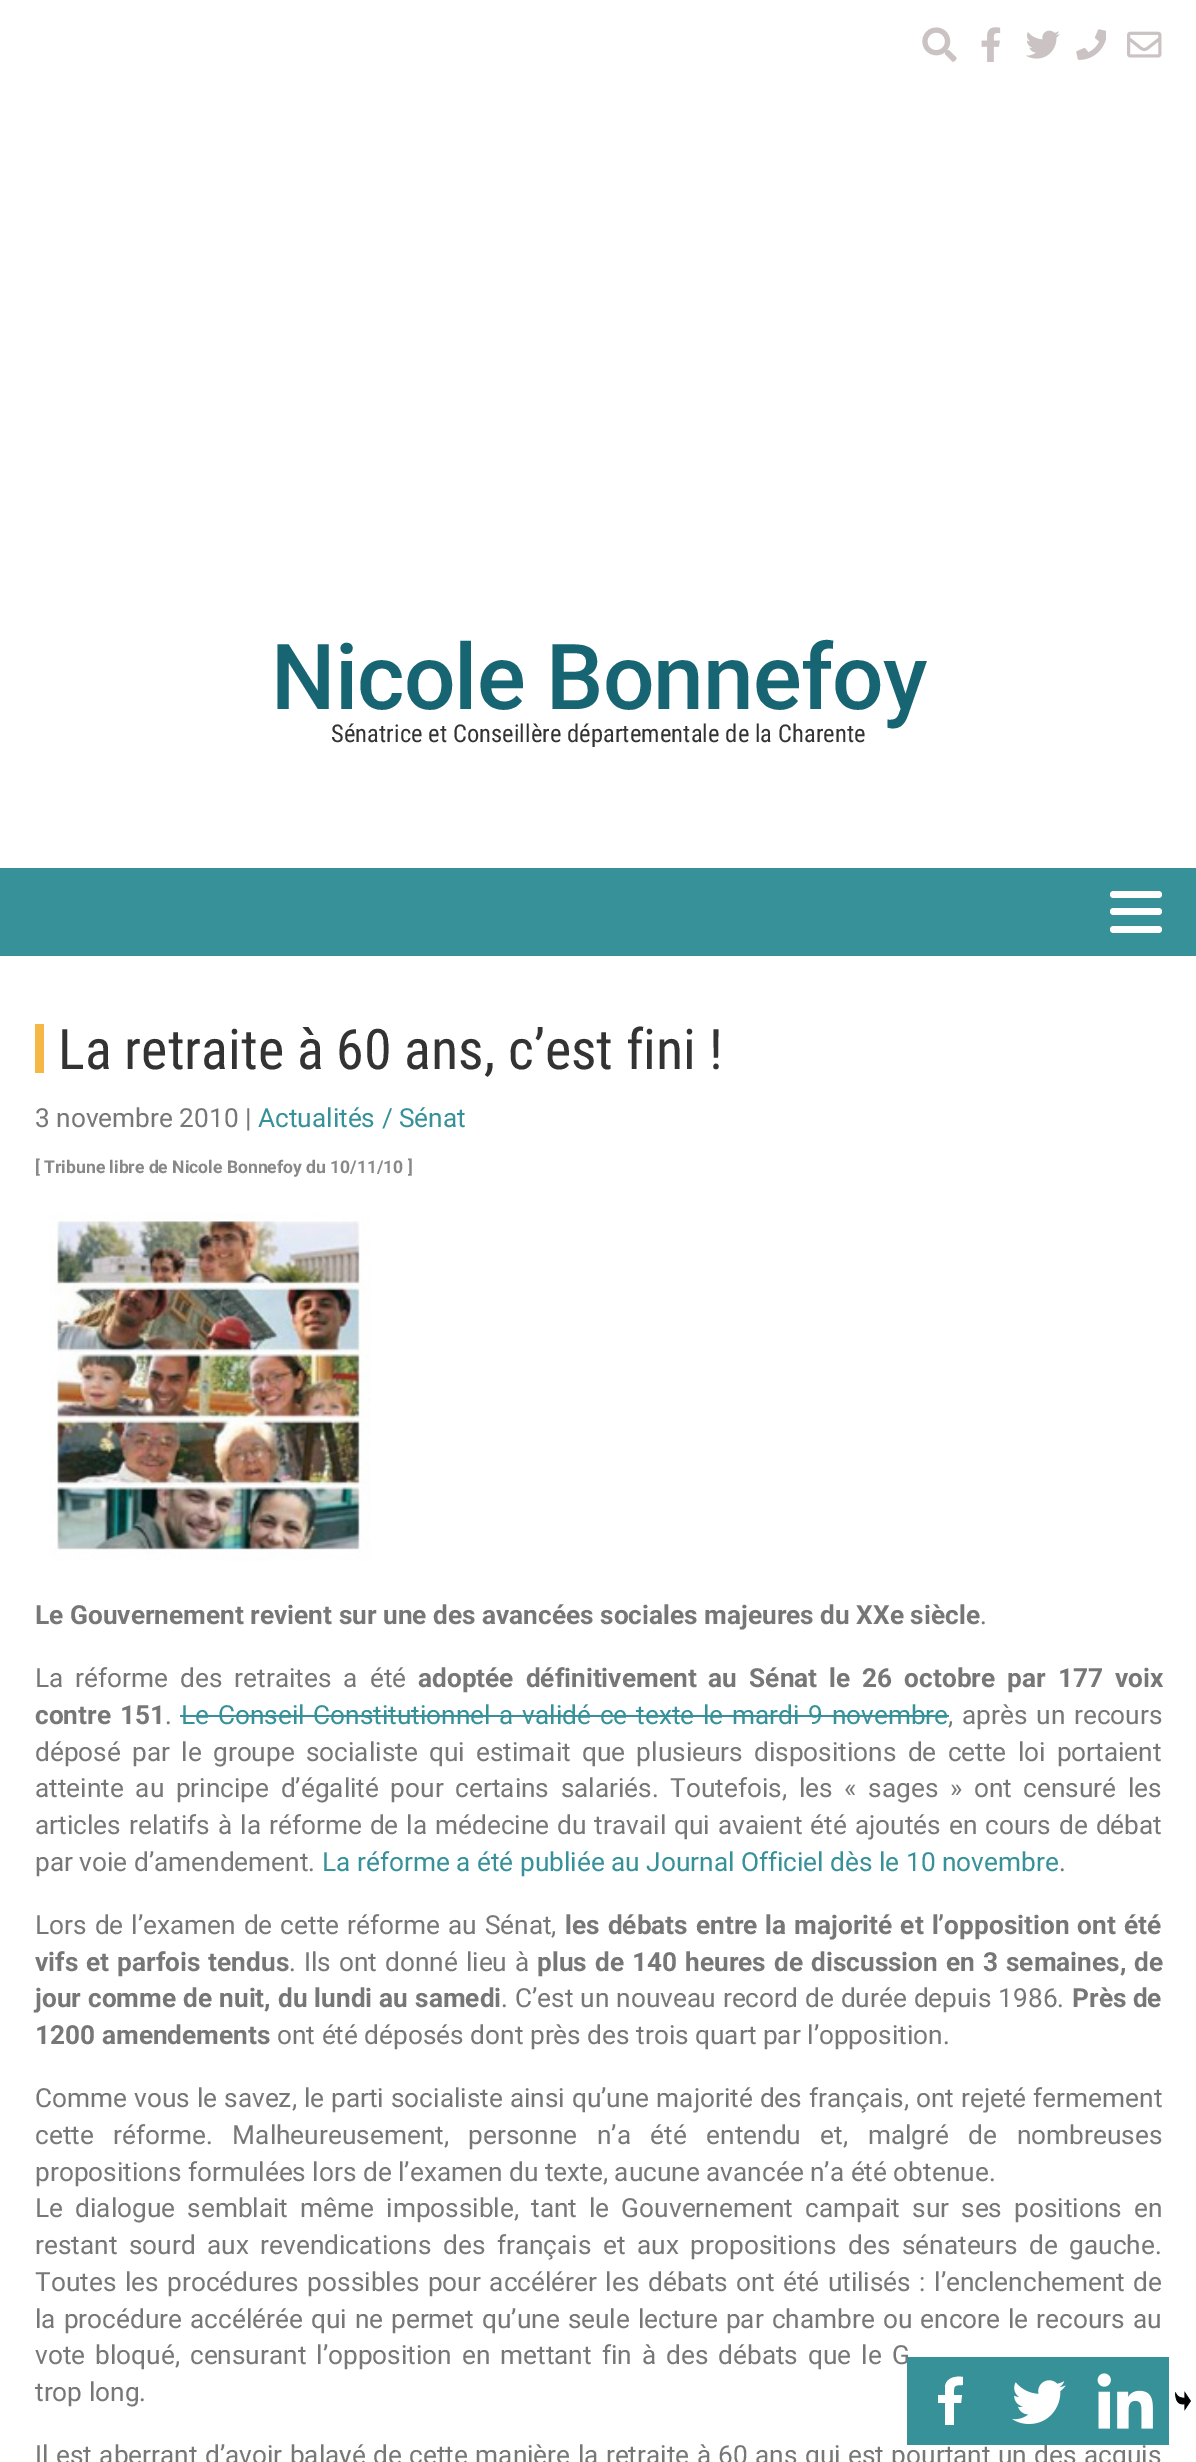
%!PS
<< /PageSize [1196 2462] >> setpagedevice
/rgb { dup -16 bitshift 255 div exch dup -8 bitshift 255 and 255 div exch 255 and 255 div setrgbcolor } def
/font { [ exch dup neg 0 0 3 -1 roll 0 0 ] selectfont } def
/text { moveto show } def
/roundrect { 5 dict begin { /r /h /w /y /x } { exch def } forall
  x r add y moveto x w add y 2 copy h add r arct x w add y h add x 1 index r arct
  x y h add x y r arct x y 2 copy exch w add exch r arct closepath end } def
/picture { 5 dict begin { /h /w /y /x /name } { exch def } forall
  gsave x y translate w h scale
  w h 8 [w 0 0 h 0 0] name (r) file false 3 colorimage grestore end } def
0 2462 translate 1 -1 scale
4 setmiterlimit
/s1 { /RobotoCondensed-Regular 56 font 16#333333 rgb } def
/s2 { /Roboto-Regular 26.25 font 16#777777 rgb } def
/s3 { /Roboto-Regular 26.25 font 16#379199 rgb } def
/s4 { /Roboto-Bold 17.5 font 16#888888 rgb } def
/s5 { /Roboto-Bold 26.25 font 16#777777 rgb } def
16#FFFFFF rgb
0 0 1196 2462 rectfill
(pic1.raw) 922 27 35 35 picture
(pic2.raw) 981 27 20 35 picture
(pic3.raw) 1026 30 34 29 picture
(pic4.raw) 1076 29 30 31 picture
(pic5.raw) 1127 31 35 27 picture
/Roboto-Medium 91 font
16#176573 rgb
271 709 moveto -0.9 0 (Nicole Bonnefoy) ashow
/RobotoCondensed-Regular 24.5 font
16#333333 rgb
331 742 moveto 0.07 0 (Sénatrice et Conseillère départementale de la Charente) ashow
16#379199 rgb
0 868 1196 88 rectfill
16#FFFFFF rgb
1110 908 52 7 3.5 roundrect fill
1110 891 52 7 3.5 roundrect fill
1110 926 52 7 3.5 roundrect fill
16#F5B847 rgb
35 1024 9 49 rectfill
s1
(La retraite à 60 ans, c’est fini !) 58 1069 text
s2
(3 novembre 2010 |) 35 1127 text
s3
(Actualités / Sénat) 258 1127 text
s4
([ Tribune libre de Nicole Bonnefoy du 10/11/10 ]) 35 1173 text
(pic6.raw) 49 1213 322 348 picture
s5
(Le Gouvernement revient sur une des avancées sociales majeures du XXe siècle) 35 1624 text
s2
(.) 980 1624 text
35 1687 moveto 5.5 0 32 (La réforme des retraites a été) widthshow
/Roboto-Bold 26.25 font
418 1687 moveto 5.5 0 32 (adoptée définitivement au Sénat le 26 octobre par 177 voix) widthshow
35 1724 moveto 2.25 0 32 (contre 151) widthshow
s2
(.) 165 1724 text
16#379199 rgb
181 1724 moveto 2.25 0 32 (Le Conseil Constitutionnel a validé ce texte le mardi 9 novembre) widthshow
180 1715 769 2 rectfill
16#777777 rgb
948 1724 moveto 2.25 0 32 (, après un recours) widthshow
35 1761 moveto 4.75 0 32 (déposé par le groupe socialiste qui estimait que plusieurs dispositions de cette loi portaient) widthshow
35 1797 moveto 5.1 0 32 (atteinte au principe d’égalité pour certains salariés. Toutefois, les « sages » ont censuré les) widthshow
35 1834 moveto 1.5 0 32 (articles relatifs à la réforme de la médecine du travail qui avaient été ajoutés en cours de débat) widthshow
(par voie d’amendement.) 35 1871 text
s3
(La réforme a été publiée au Journal Officiel dès le 10 novembre) 322 1871 text
s2
(.) 1059 1871 text
35 1934 moveto 1.5 0 32 (Lors de l’examen de cette réforme au Sénat,) widthshow
/Roboto-Bold 26.25 font
565 1934 moveto 1.5 0 32 (les débats entre la majorité et l’opposition ont été) widthshow
35 1971 moveto 1.5 0 32 (vifs et parfois tendus) widthshow
/Roboto-Regular 26.25 font
289 1971 moveto 1.5 0 32 (. Ils ont donné lieu à) widthshow
/Roboto-Bold 26.25 font
537 1971 moveto 1.5 0 32 (plus de 140 heures de discussion en 3 semaines, de) widthshow
35 2007 moveto 0.5 0 32 (jour comme de nuit, du lundi au samedi) widthshow
/Roboto-Regular 26.25 font
501 2007 moveto 0.5 0 32 (. C’est un nouveau record de durée depuis 1986.) widthshow
s5
(Près de) 1072 2007 text
(1200 amendements) 35 2044 text
s2
(ont été déposés dont près des trois quart par l’opposition.) 277 2044 text
35 2107 moveto 0.5 0 32 (Comme vous le savez, le parti socialiste ainsi qu’une majorité des français, ont rejeté fermement) widthshow
35 2144 moveto 13 0 32 (cette réforme. Malheureusement, personne n’a été entendu et, malgré de nombreuses) widthshow
(propositions formulées lors de l’examen du texte, aucune avancée n’a été obtenue.) 35 2181 text
35 2217 moveto 5.6 0 32 (Le dialogue semblait même impossible, tant le Gouvernement campait sur ses positions en) widthshow
35 2254 moveto 5 0 32 (restant sourd aux revendications des français et aux propositions des sénateurs de gauche.) widthshow
35 2291 moveto 2 0 32 (Toutes les procédures possibles pour accélérer les débats ont été utilisés : l’enclenchement de) widthshow
35 2328 moveto 1.5 0 32 (la procédure accélérée qui ne permet qu’une seule lecture par chambre ou encore le recours au) widthshow
35 2364 moveto 3.5 0 32 (vote bloqué, censurant l’opposition en mettant fin à des débats que le G) widthshow
(trop long.) 35 2401 text
35 2464 moveto 0.9 0 32 (Il est aberrant d’avoir balayé de cette manière la retraite à 60 ans qui est pourtant un des acquis) widthshow
16#379199 rgb
907 2357 262 88 rectfill
16#FFFFFF rgb
954 2425 moveto 954 2403 lineto 961 2403 lineto 962 2395 lineto 954 2395 lineto 954 2386 953 2385 963 2385 curveto 963 2377 lineto 956 2376 947 2377 945 2386 curveto 945 2395 lineto 938 2395 lineto 938 2403 lineto 945 2403 lineto 945 2425 lineto closepath fill
(pic7.raw) 1012 2380 54 44 picture
(pic8.raw) 1097 2373 56 56 picture
(pic9.raw) 1175 2391 16 20 picture
showpage
